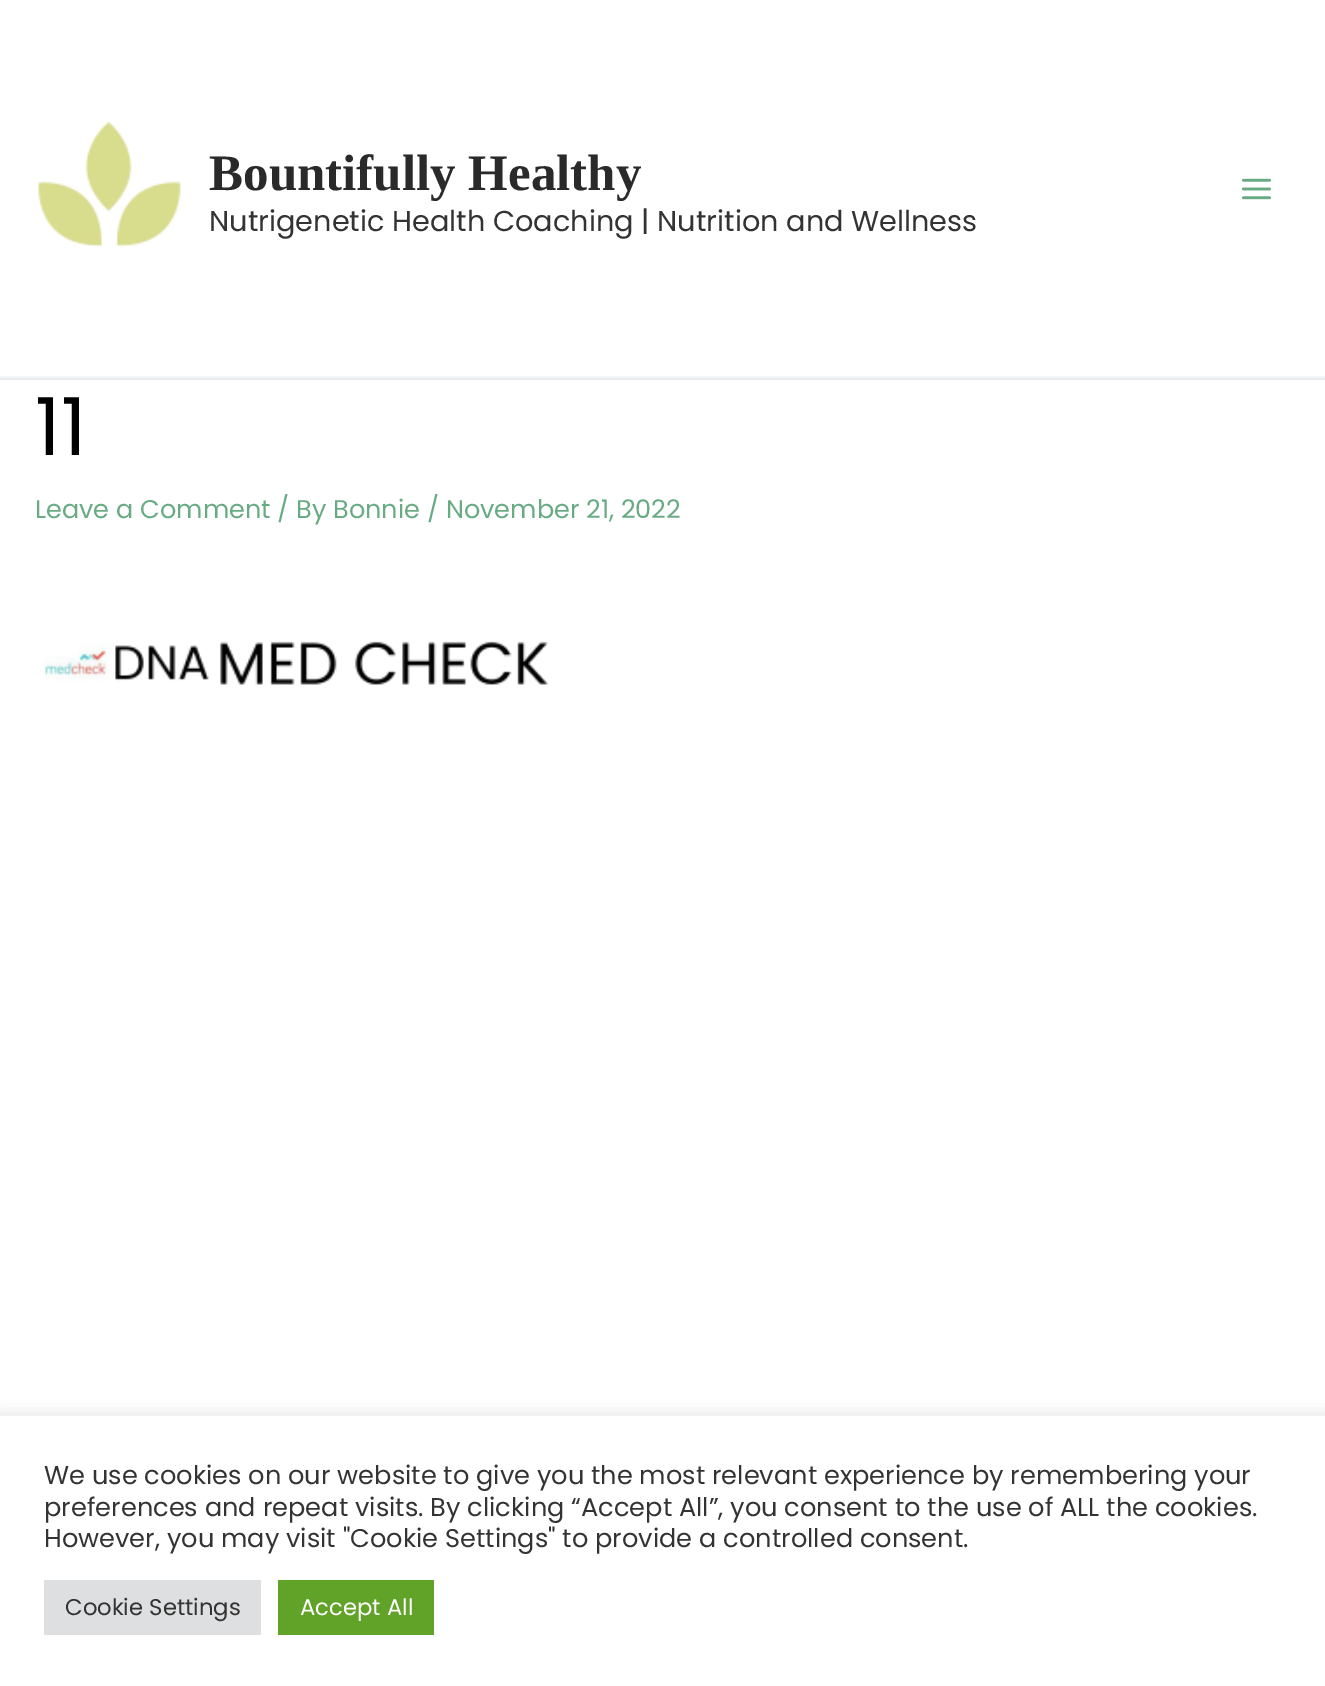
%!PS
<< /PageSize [1325 1686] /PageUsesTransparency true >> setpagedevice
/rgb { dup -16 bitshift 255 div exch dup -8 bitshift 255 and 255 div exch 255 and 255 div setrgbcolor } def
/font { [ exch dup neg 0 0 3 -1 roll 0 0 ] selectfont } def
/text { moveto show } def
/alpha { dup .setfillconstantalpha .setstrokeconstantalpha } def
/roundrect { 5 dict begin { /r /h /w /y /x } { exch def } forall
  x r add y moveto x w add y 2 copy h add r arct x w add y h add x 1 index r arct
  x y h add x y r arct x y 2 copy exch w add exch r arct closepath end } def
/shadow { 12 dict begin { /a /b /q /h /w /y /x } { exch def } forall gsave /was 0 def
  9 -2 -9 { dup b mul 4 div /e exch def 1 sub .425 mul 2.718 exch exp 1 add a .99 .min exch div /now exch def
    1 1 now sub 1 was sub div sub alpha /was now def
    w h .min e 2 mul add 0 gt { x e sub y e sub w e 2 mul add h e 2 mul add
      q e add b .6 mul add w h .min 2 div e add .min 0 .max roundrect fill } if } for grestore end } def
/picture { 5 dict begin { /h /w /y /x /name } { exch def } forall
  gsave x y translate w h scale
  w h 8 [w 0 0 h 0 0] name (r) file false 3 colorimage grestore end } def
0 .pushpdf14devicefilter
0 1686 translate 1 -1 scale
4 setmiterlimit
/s1 { /LiberationSerif-Bold 51 font 16#2A2A2A rgb } def
/s2 { /Poppins-Regular 28.75 font 16#333333 rgb } def
/s3 { /Poppins-Regular 80 font 16#000000 rgb } def
/s4 { /Poppins-Regular 25.55 font 16#68AA82 rgb } def
/s5 { /Poppins-Regular 25.65 font 16#333333 rgb } def
/s6 { /Poppins-Regular 22.75 font 16#333333 rgb } def
/s7 { /Poppins-Regular 22.75 font 16#FFFFFF rgb } def
16#FFFFFF rgb
0 0 1325 1686 rectfill
16#EAEAEA rgb
0 378 1325 2 rectfill
16#F2F5F7 rgb
0 376 1325 2 rectfill
(pic1.raw) 38 122 143 125 picture
s1
(Bountifully Healthy) 209 190 text
s2
(Nutrigenetic Health Coaching | Nutrition and Wellness) 209 231 text
(pic2.raw) 1241 178 31 22 picture
s3
(11) 35 455 text
s4
(Leave a Comment / By Bonnie / November 21, 2022) 35 518 text
(pic3.raw) 43 641 506 44 picture
gsave
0 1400 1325 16 rectclip
16#ACABAB rgb
0 1414 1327 271 0 9 0.3 shadow
grestore
s5
(We use cookies on our website to give you the most relevant experience by remembering your) 44 1484 text
(preferences and repeat visits. By clicking “Accept All”, you consent to the use of ALL the cookies.) 44 1516 text
(However, you may visit "Cookie Settings" to provide a controlled consent.) 44 1547 text
16#DEDFE0 rgb
44 1580 217 55 rectfill
s6
(Cookie Settings) 65 1615 text
16#61A229 rgb
278 1580 156 55 rectfill
s7
(Accept All) 300 1615 text
.poppdf14devicefilter showpage
